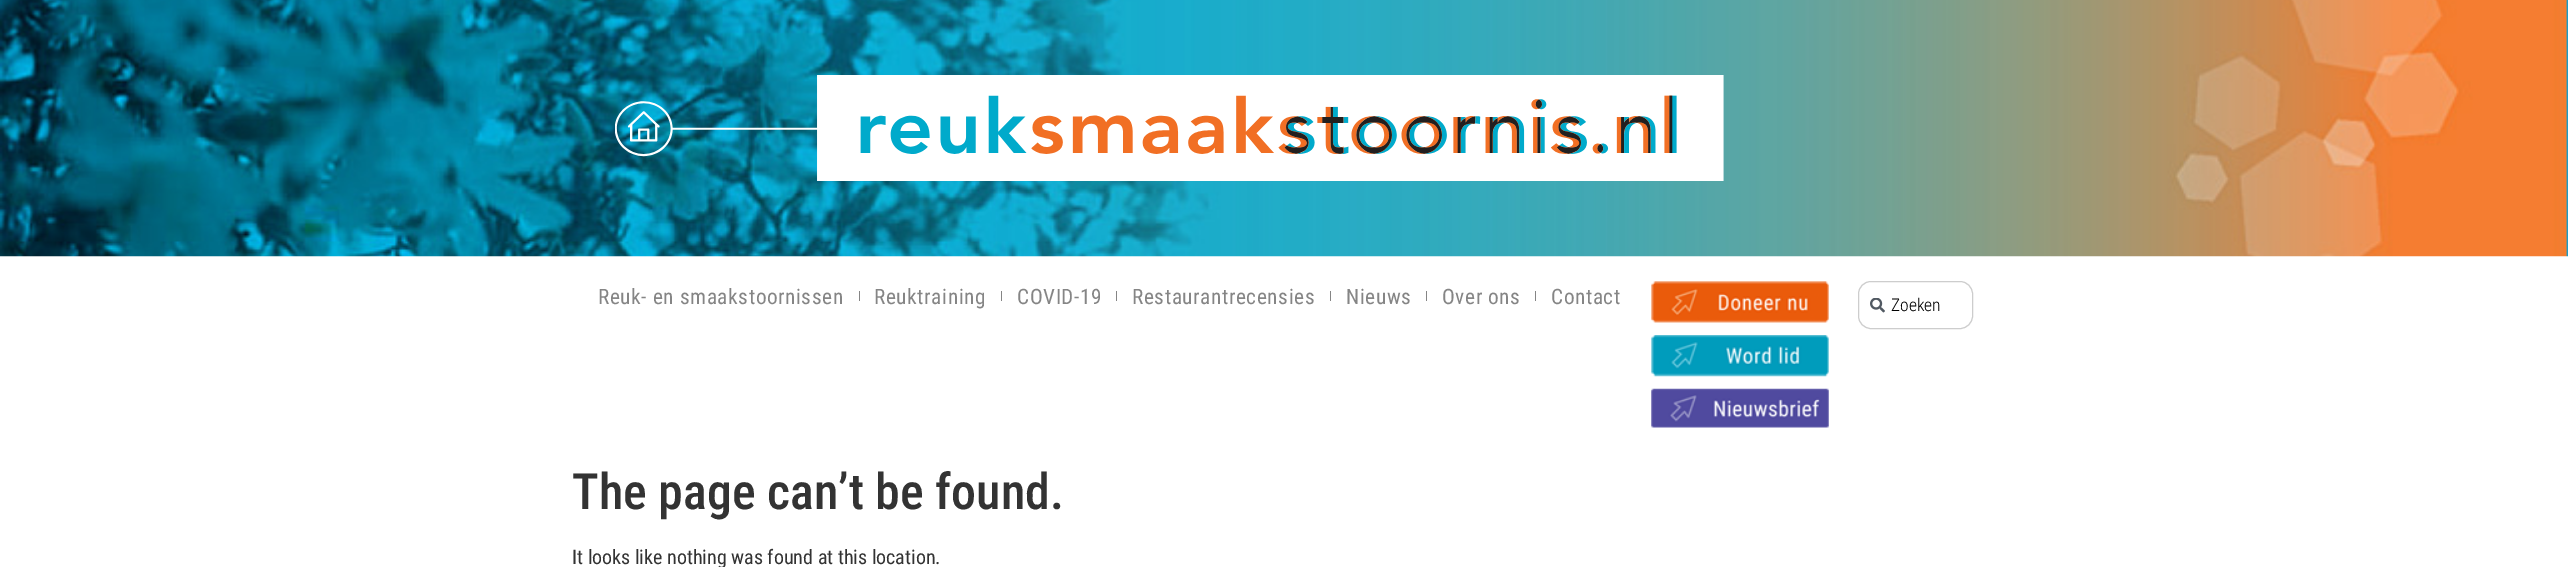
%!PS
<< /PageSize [2568 567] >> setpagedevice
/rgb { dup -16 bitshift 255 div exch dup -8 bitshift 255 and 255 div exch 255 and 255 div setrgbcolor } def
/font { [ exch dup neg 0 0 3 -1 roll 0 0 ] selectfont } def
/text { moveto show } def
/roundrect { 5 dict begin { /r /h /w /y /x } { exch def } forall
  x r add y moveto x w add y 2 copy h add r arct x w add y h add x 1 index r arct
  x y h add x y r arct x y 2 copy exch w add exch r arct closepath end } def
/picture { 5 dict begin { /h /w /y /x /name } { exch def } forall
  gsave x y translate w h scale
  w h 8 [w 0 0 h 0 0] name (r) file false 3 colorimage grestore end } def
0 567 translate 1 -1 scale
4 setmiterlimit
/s1 { /RobotoCondensed-Light 17.5 font 16#000000 rgb } def
/s2 { /RobotoCondensed-Medium 50 font 16#333333 rgb } def
/s3 { /RobotoCondensed-Regular 20 font 16#333333 rgb } def
16#FFFFFF rgb
0 0 2568 567 rectfill
(pic1.raw) 0 0 2568 257 picture
(pic2.raw) 615 75 1109 106 picture
/RobotoCondensed-Regular 21.25 font
16#858585 rgb
598 304 moveto 0.6 0 (Reuk- en smaakstoornissen) ashow
859 291 1 10 rectfill
874 304 moveto 0.6 0 (Reuktraining) ashow
1001 291 1 10 rectfill
1017 304 moveto 0.6 0 (COVID-19) ashow
1116 291 1 10 rectfill
1132 304 moveto 0.6 0 (Restaurantrecensies) ashow
1330 291 1 10 rectfill
1346 304 moveto 0.6 0 (Nieuws) ashow
1426 291 1 10 rectfill
1442 304 moveto 0.6 0 (Over ons) ashow
1535 291 1 10 rectfill
1551 304 moveto 0.6 0 (Contact) ashow
(pic3.raw) 1651 281 178 42 picture
(pic4.raw) 1651 335 178 42 picture
(pic5.raw) 1651 388 178 40 picture
16#CDCDCD rgb
1858.5 281.5 114 47 12.5 roundrect stroke
(pic6.raw) 1870 298 15 15 picture
s1
(Zoeken) 1891 311 text
s2
(The page can’t be found.) 572 509 text
s3
(It looks like nothing was found at this location.) 572 564 text
showpage
